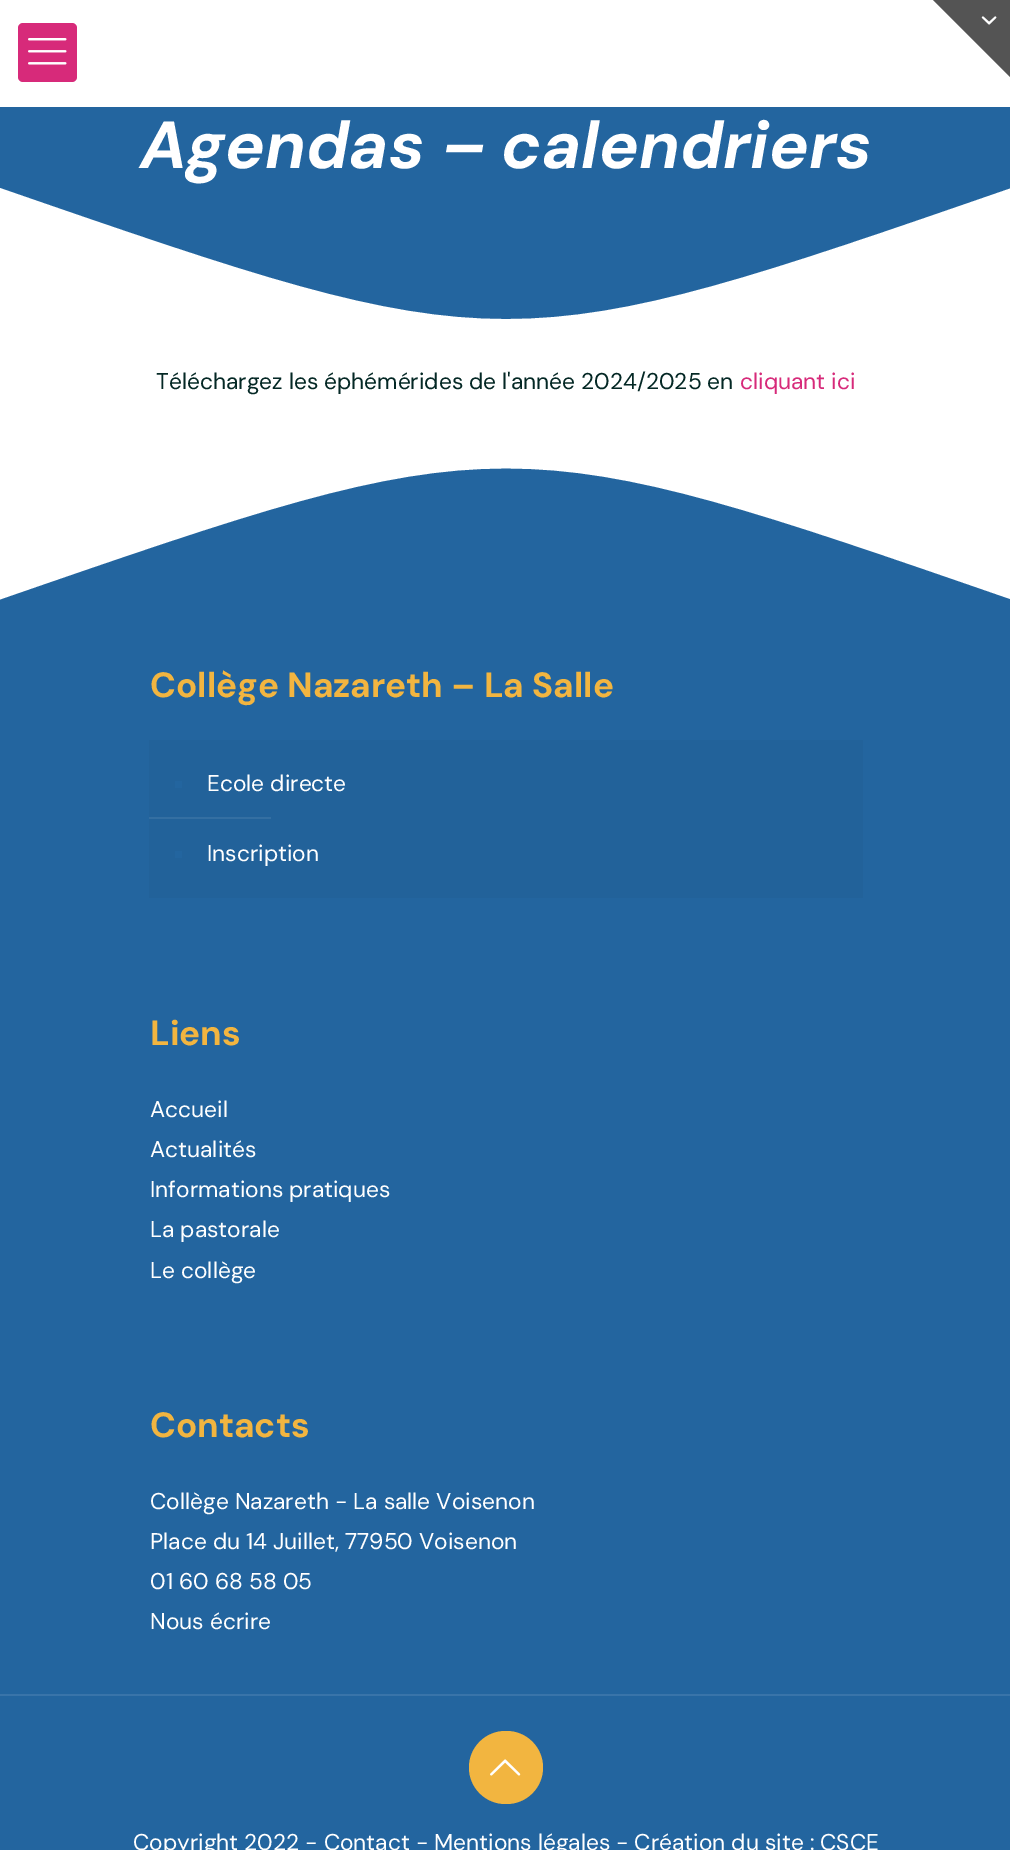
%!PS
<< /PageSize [1010 1850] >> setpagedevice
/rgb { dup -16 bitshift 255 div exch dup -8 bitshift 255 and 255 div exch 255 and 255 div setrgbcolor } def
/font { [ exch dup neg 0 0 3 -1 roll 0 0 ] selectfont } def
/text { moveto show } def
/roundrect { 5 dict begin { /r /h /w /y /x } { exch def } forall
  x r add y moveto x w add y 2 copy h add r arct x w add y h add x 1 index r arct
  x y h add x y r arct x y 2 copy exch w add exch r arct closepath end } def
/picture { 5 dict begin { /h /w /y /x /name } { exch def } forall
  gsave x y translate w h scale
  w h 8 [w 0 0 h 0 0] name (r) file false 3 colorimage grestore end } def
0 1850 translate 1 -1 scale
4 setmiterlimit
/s1 { /DMSans-BoldItalic 66.5 font 16#FFFFFF rgb } def
/s2 { /DMSans-Regular 22.75 font 16#042825 rgb } def
/s3 { /DMSans-Regular 22.75 font 16#D72A7A rgb } def
/s4 { /DMSans-Bold 35 font 16#F2B540 rgb } def
/s5 { /DMSans-Regular 22.75 font 16#FFFFFF rgb } def
16#FFFFFF rgb
0 0 1010 1850 rectfill
16#545454 rgb
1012 0 moveto 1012 79 lineto 933 0 lineto closepath fill
(pic1.raw) 981 16 16 9 picture
16#D72A7A rgb
18 23 59 59 5 roundrect fill
(pic2.raw) 28 38 39 27 picture
16#23659F rgb
0 107 1010 79 rectfill
s1
(Agendas – calendriers) 140 168 text
16#23659F rgb
0 186 moveto 506 360 506 360 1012 186 curveto closepath fill
gsave
0 186 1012 175 rectclip
4.2 setlinewidth
0 185.5 moveto 506 360.5 506 360.5 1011.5 185.5 curveto closepath stroke
grestore
s2
(Téléchargez les éphémérides de l'année 2024/2025 en) 156 389 text
s3
(cliquant ici) 740 389 text
16#23659F rgb
0 602 moveto 506 427 506 427 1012 602 curveto closepath fill
4.2 setlinewidth
0 602 moveto 506 427 506 427 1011.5 602 curveto closepath stroke
0 604 1010 1246 rectfill
s4
(Collège Nazareth – La Salle) 150 697 text
16#22629A rgb
149 740 714 158 rectfill
16#23659F rgb
175 781 7 7 rectfill
s5
(Ecole directe) 207 791 text
16#346FA2 rgb
149 817 122 2 rectfill
16#23659F rgb
175 851 7 7 rectfill
s5
(Inscription) 207 861 text
s4
(Liens) 150 1045 text
s5
(Accueil) 150 1117 text
(Actualités) 150 1157 text
(Informations pratiques) 150 1197 text
(La pastorale) 150 1237 text
(Le collège) 150 1278 text
s4
(Contacts) 150 1437 text
s5
(Collège Nazareth - La salle Voisenon) 150 1509 text
(Place du 14 Juillet, 77950 Voisenon) 150 1549 text
(01 60 68 58 05) 150 1589 text
(Nous écrire) 150 1629 text
16#3974A9 rgb
0 1694 1010 2 rectfill
16#F2B540 rgb
469 1731 74 73 36.5 roundrect fill
(pic3.raw) 490 1759 31 17 picture
s5
(Copyright 2022 - Contact - Mentions légales - Création du site : CSCE) 133 1850 text
showpage
